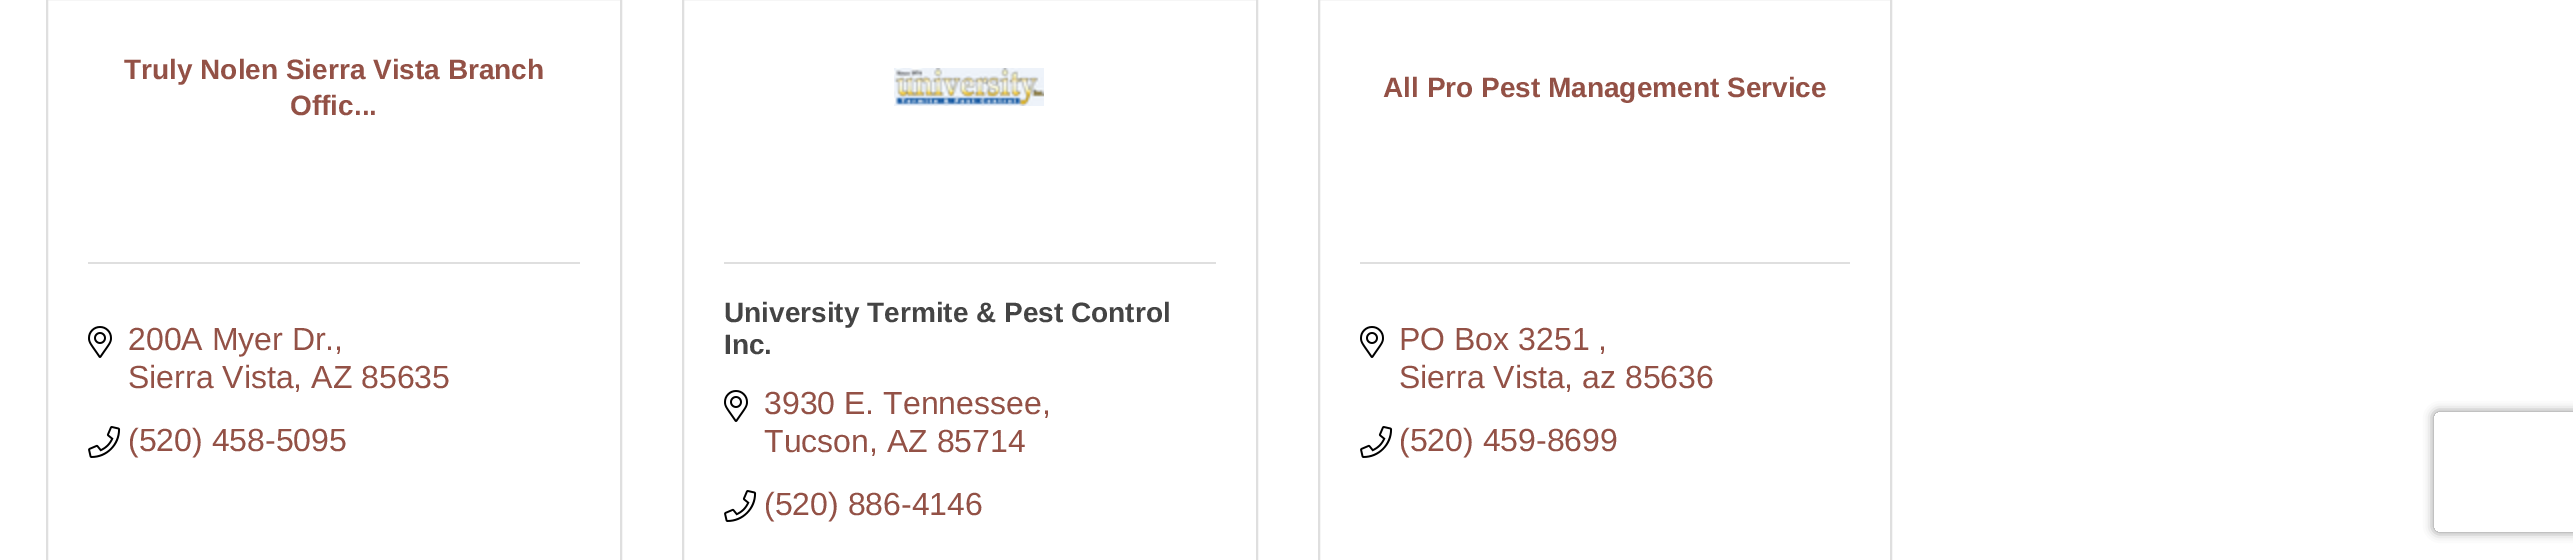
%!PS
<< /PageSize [2573 560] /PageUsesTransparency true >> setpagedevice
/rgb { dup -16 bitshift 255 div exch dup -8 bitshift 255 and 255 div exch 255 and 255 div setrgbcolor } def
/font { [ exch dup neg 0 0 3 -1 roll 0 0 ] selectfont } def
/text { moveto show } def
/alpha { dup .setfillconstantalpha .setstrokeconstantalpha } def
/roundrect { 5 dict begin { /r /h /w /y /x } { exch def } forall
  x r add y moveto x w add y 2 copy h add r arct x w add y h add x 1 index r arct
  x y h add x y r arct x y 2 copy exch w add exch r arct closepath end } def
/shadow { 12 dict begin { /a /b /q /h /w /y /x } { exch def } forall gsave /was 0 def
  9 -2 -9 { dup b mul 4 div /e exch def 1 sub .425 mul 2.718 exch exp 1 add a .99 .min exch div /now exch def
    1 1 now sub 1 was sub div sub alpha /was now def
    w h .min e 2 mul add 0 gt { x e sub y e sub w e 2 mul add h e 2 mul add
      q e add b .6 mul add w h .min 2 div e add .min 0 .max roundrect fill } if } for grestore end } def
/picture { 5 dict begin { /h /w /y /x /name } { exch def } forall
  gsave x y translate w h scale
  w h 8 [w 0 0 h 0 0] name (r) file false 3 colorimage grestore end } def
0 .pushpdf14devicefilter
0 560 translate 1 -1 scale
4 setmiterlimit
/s1 { /LiberationSans-Bold 28 font 16#935146 rgb } def
/s2 { /LiberationSans-Regular 32 font 16#935146 rgb } def
/s3 { /LiberationSans-Bold 28 font 16#444444 rgb } def
16#FFFFFF rgb
0 0 2573 560 rectfill
16#DFDFDF rgb
2 setlinewidth
47 -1 574 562 rectstroke
s1
(Truly Nolen Sierra Vista Branch) 124 79 text
(Offic...) 290 115 text
16#DFDFDF rgb
88 262 492 2 rectfill
(pic1.raw) 88 326 24 32 picture
s2
(200A Myer Dr.,) 128 350 text
(Sierra Vista, AZ 85635) 128 388 text
(pic2.raw) 88 426 33 32 picture
(\(520\) 458-5095) 128 451 text
16#DFDFDF rgb
683 -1 574 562 rectstroke
(pic3.raw) 894 68 150 38 picture
724 262 492 2 rectfill
s3
(University Termite & Pest Control) 724 322 text
(Inc.) 724 354 text
(pic1.raw) 724 390 24 32 picture
s2
(3930 E. Tennessee,) 764 414 text
(Tucson, AZ 85714) 764 452 text
(pic2.raw) 724 490 33 32 picture
(\(520\) 886-4146) 764 515 text
16#DFDFDF rgb
1319 -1 572 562 rectstroke
s1
(All Pro Pest Management Service) 1383 97 text
16#DFDFDF rgb
1360 262 490 2 rectfill
(pic1.raw) 1360 326 24 32 picture
s2
(PO Box 3251 ,) 1399 350 text
(Sierra Vista, az 85636) 1399 388 text
(pic2.raw) 1360 426 33 32 picture
(\(520\) 459-8699) 1399 451 text
gsave
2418 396 moveto 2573 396 lineto 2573 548 lineto 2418 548 lineto closepath 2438 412 moveto 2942 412 lineto 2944 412 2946 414 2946 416 curveto 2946 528 lineto 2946 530 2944 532 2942 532 curveto 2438 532 lineto 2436 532 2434 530 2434 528 curveto 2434 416 lineto 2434 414 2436 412 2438 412 curveto closepath eoclip newpath
16#808080 rgb
2434 412 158 120 4 5 1 shadow
grestore
.poppdf14devicefilter showpage
